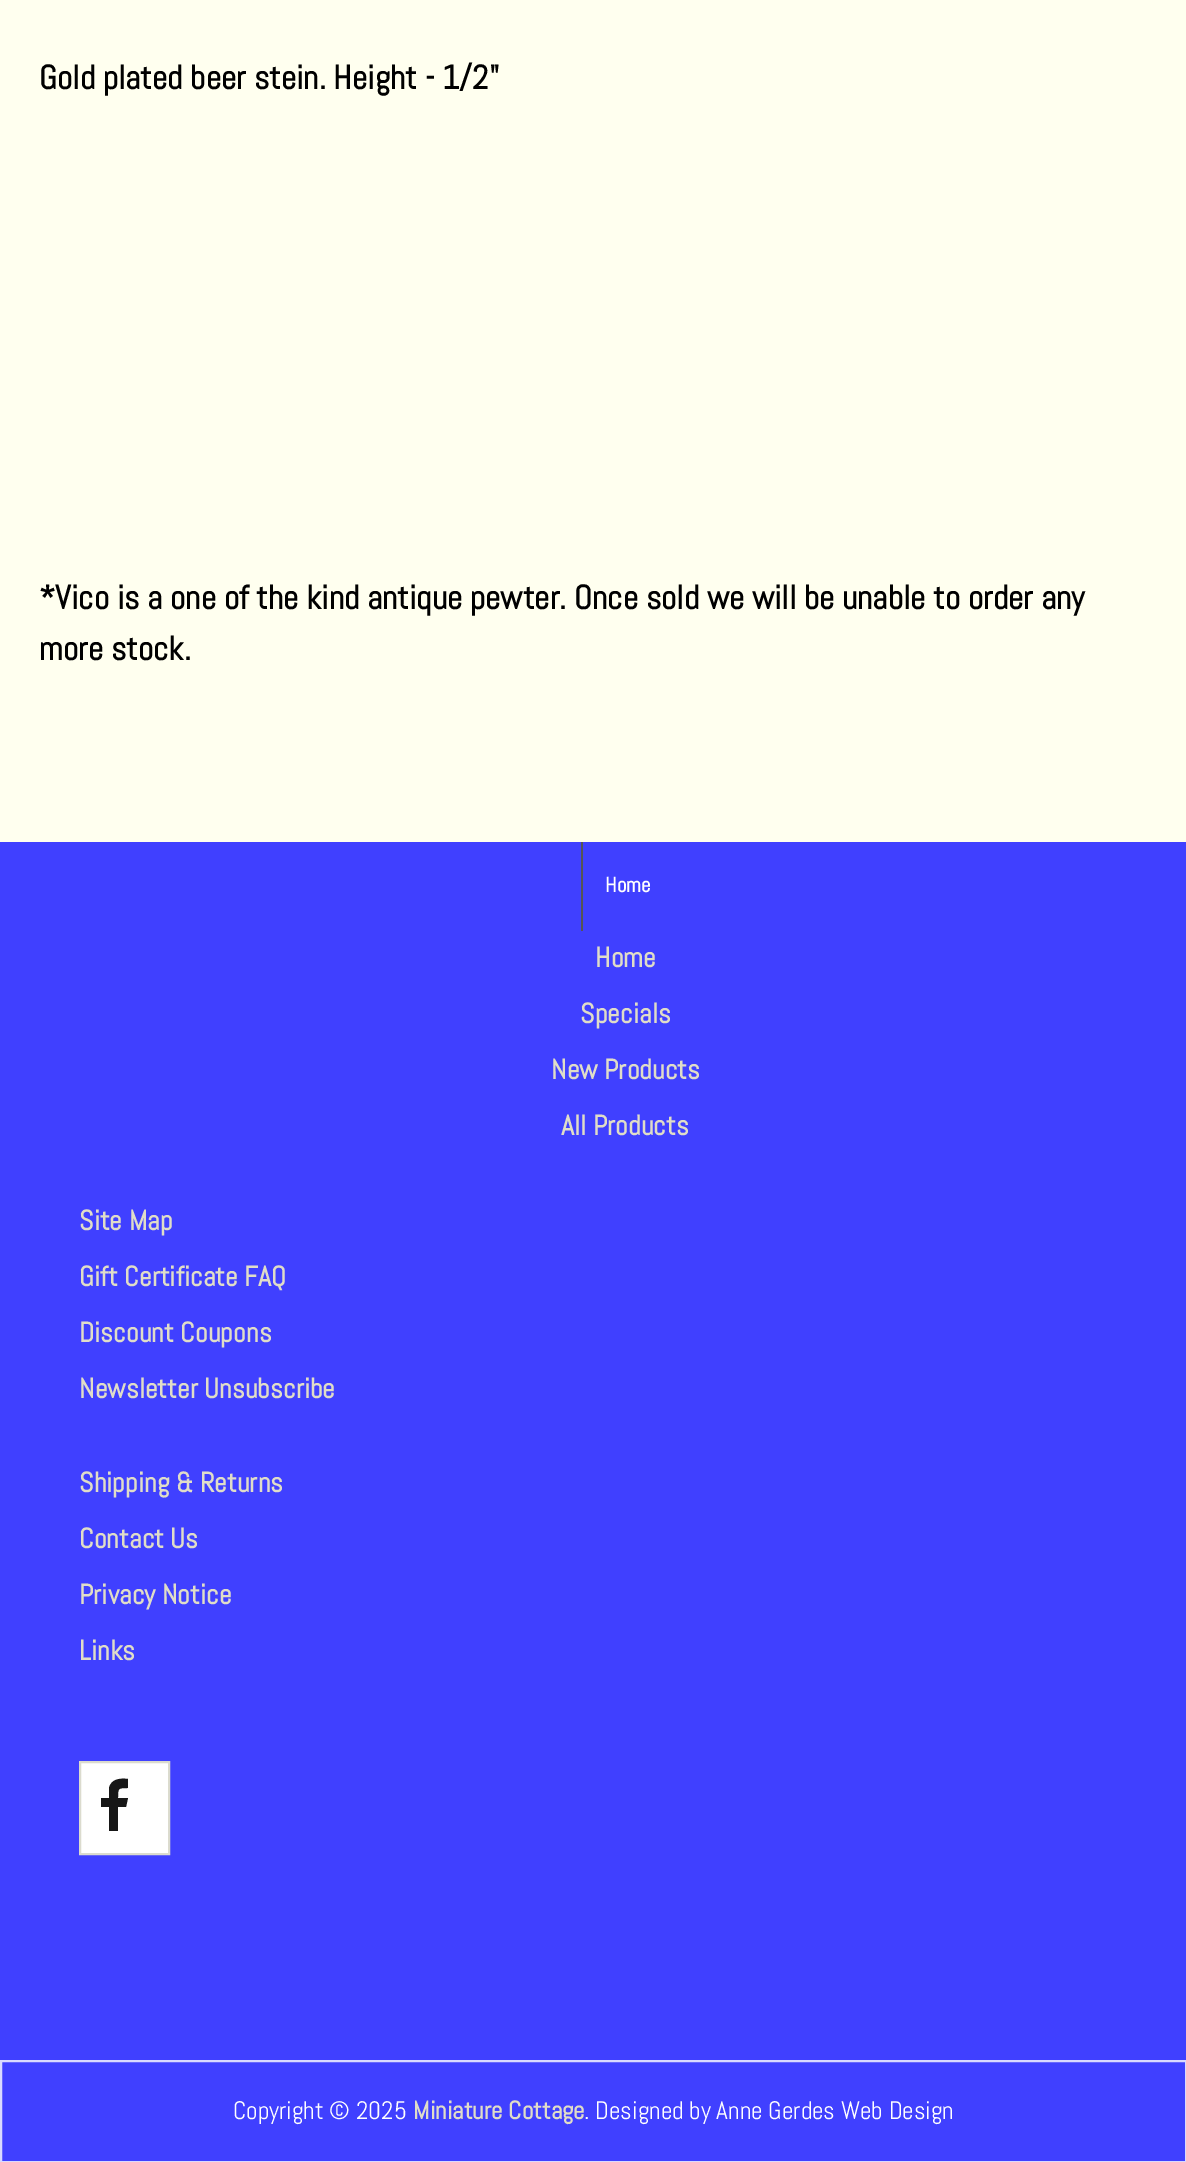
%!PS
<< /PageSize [1186 2162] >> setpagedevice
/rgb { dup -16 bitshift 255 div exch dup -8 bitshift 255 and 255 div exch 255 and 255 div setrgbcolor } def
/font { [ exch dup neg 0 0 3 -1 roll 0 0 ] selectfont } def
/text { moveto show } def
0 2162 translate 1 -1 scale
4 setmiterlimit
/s1 { /Abel-Bold 33.6 font 16#000000 rgb } def
/s2 { /Abel-Bold 21 font 16#FFFFFF rgb } def
/s3 { /Abel-Bold 28 font 16#E0DDC8 rgb } def
/s4 { /Abel-Regular 25.25 font 16#FFFFFF rgb } def
/s5 { /Abel-Bold 25.25 font 16#E0DDC8 rgb } def
16#FFFFEF rgb
0 0 1186 2162 rectfill
s1
(Gold plated beer stein. Height - 1/2") 39 89 text
(*Vico is a one of the kind antique pewter. Once sold we will be unable to order any) 39 609 text
(more stock.) 39 660 text
16#4040FF rgb
0 842 1186 1319 rectfill
16#555555 rgb
581 842 2 89 rectfill
s2
(Home) 605 892 text
s3
(Home) 595 967 text
(Specials) 580 1023 text
(New Products) 551 1079 text
(All Products) 561 1135 text
(Site Map) 79 1230 text
(Gift Certificate FAQ) 79 1286 text
(Discount Coupons) 79 1342 text
(Newsletter Unsubscribe) 79 1398 text
(Shipping & Returns) 79 1492 text
(Contact Us) 79 1548 text
(Privacy Notice) 79 1604 text
(Links) 79 1660 text
16#FFFFFF rgb
80 1762 moveto 169 1762 lineto 169 1854 lineto 80 1854 lineto closepath gsave fill grestore
16#DBDBCE rgb
2 setlinewidth
stroke
16#171717 rgb
128 1779 moveto 128 1788 lineto 118 1788 118 1788 118 1798 curveto 128 1798 lineto 126 1807 lineto 118 1807 lineto 118 1831 lineto 109 1831 lineto 109 1807 lineto 101 1807 lineto 101 1798 lineto 109 1798 lineto 109 1788 lineto 111 1779 120 1778 128 1779 curveto closepath fill
16#D9D9FF rgb
1 2061 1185 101 rectstroke
s4
(Copyright © 2025) 233 2119 text
s5
(Miniature Cottage) 413 2119 text
s4
(. Designed by Anne Gerdes Web Design) 584 2119 text
showpage
